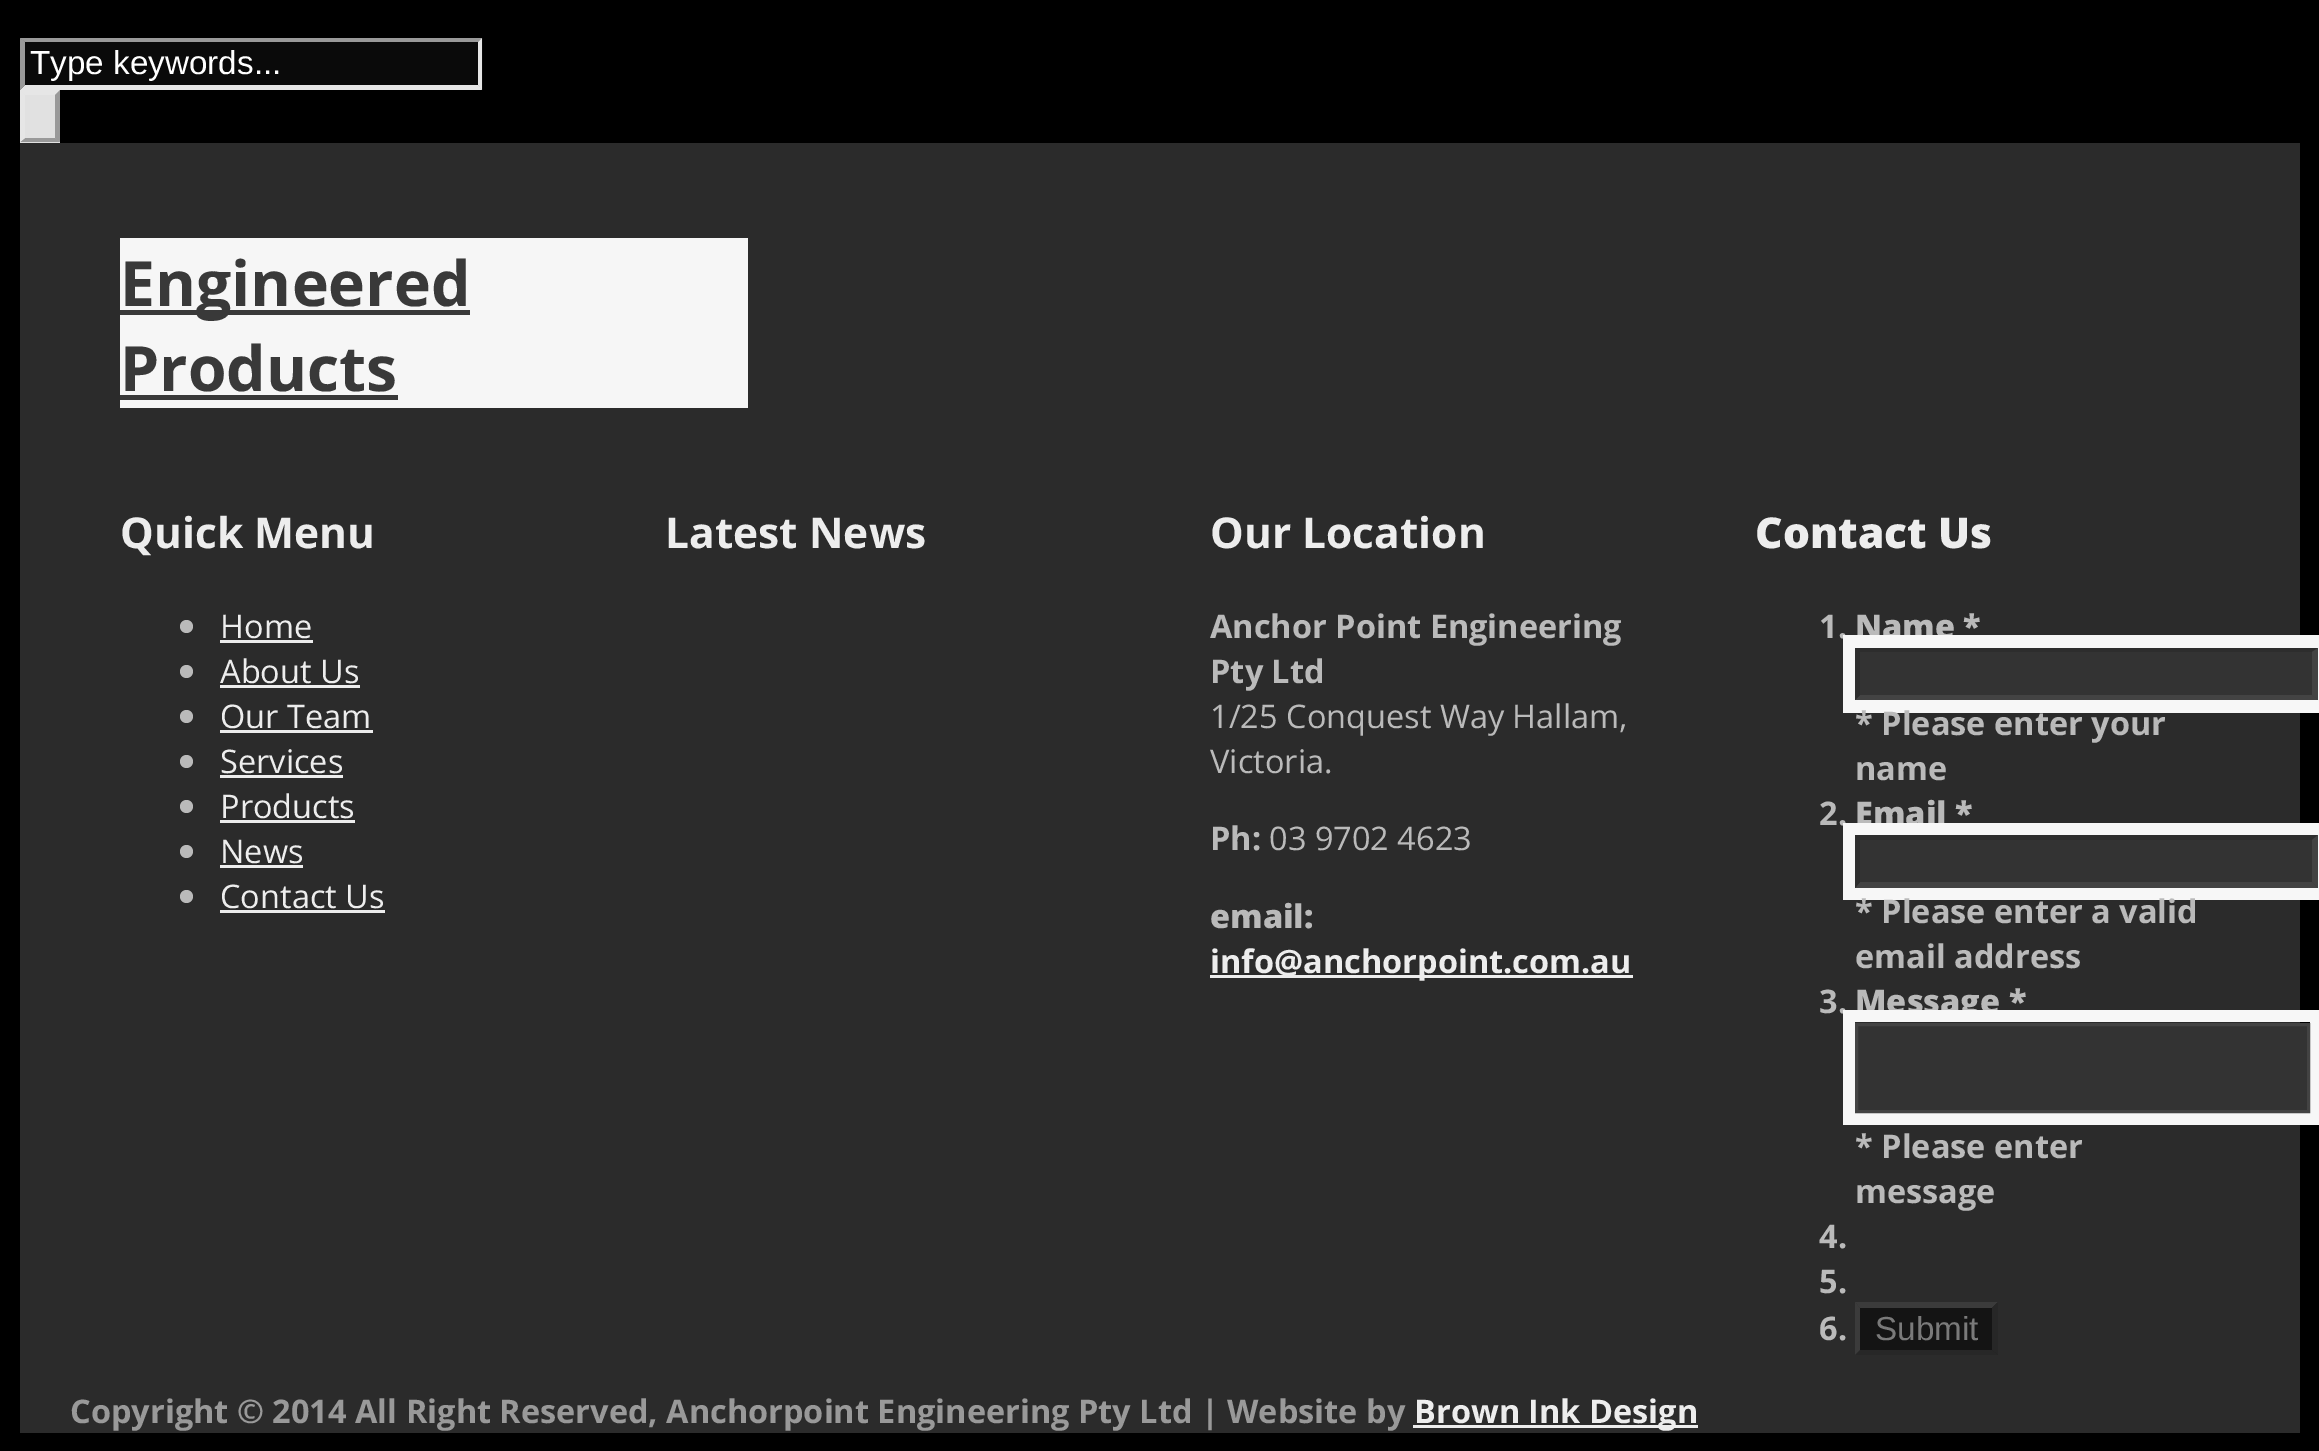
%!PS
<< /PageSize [2319 1451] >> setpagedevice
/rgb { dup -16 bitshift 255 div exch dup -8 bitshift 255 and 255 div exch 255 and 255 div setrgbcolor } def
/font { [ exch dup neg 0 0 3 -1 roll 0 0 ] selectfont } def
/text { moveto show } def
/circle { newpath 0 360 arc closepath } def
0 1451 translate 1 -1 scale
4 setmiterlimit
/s1 { /LiberationSans-Regular 33.25 font 16#FFFFFF rgb } def
/s2 { /OpenSans-Bold 62.5 font 16#393939 rgb } def
/s3 { /OpenSans-Bold 42.5 font 16#EDEDED rgb } def
/s4 { /OpenSans-Regular 32.5 font 16#EDEDED rgb } def
/s5 { /OpenSans-Bold 32.5 font 16#BABABA rgb } def
/s6 { /OpenSans-Regular 32.5 font 16#BABABA rgb } def
/s7 { /OpenSans-ExtraBold 32.5 font 16#BABABA rgb } def
/s8 { /OpenSans-Bold 32.5 font 16#EDEDED rgb } def
/s9 { /OpenSans-ExtraBold 42.5 font 16#EDEDED rgb } def
/s10 { /LiberationSans-Regular 33.25 font 16#7A7A7A rgb } def
/s11 { /OpenSans-Bold 32.5 font 16#999999 rgb } def
16#000000 rgb
0 0 2319 1451 rectfill
16#0A0A0A rgb
20 38 463 52 rectfill
16#999999 rgb
20 38 moveto 482 38 lineto 478 42 lineto 25 42 lineto closepath fill
16#E6E6E6 rgb
482 38 moveto 482 90 lineto 478 85 lineto 478 42 lineto closepath fill
482 90 moveto 20 90 lineto 25 85 lineto 478 85 lineto closepath fill
16#999999 rgb
20 90 moveto 20 38 lineto 25 42 lineto 25 85 lineto closepath fill
s1
(Type keywords...) 30 74 text
16#E1E1E1 rgb
20 90 40 53 rectfill
16#E6E6E6 rgb
20 90 moveto 60 90 lineto 55 95 lineto 25 95 lineto closepath fill
16#999999 rgb
60 90 moveto 60 142 lineto 55 138 lineto 55 95 lineto closepath fill
60 142 moveto 20 142 lineto 25 138 lineto 55 138 lineto closepath fill
16#E6E6E6 rgb
20 142 moveto 20 90 lineto 25 95 lineto 25 138 lineto closepath fill
16#2B2B2B rgb
20 143 2280 1290 rectfill
16#F6F6F6 rgb
120 238 628 170 rectfill
16#393939 rgb
120 310 350 5 rectfill
s2
(Engineered) 120 306 text
(Products) 120 391 text
120 395 278 5 rectfill
s3
(Quick Menu) 120 548 text
16#BABABA rgb
186.5 626.5 6.5 circle fill
s4
(Home) 220 638 text
220 640 93 3 rectfill
16#BABABA rgb
186.5 671.5 6.5 circle fill
s4
(About Us) 220 683 text
220 685 140 3 rectfill
16#BABABA rgb
186.5 716.5 6.5 circle fill
s4
(Our Team) 220 728 text
220 730 153 3 rectfill
16#BABABA rgb
186.5 761.5 6.5 circle fill
s4
(Services) 220 773 text
220 775 123 3 rectfill
16#BABABA rgb
186.5 806.5 6.5 circle fill
s4
(Products) 220 818 text
220 820 135 3 rectfill
16#BABABA rgb
186.5 851.5 6.5 circle fill
s4
(News) 220 863 text
220 865 83 3 rectfill
16#BABABA rgb
186.5 896.5 6.5 circle fill
s4
(Contact Us) 220 908 text
220 910 165 3 rectfill
s3
(Latest News) 665 548 text
(Our Location) 1210 548 text
s5
(Anchor Point Engineering) 1210 638 text
(Pty Ltd) 1210 683 text
s6
(1/25 Conquest Way Hallam,) 1210 728 text
(Victoria.) 1210 773 text
s5
(Ph:) 1210 850 text
s6
(03 9702 4623) 1269 850 text
s7
(email:) 1210 928 text
16#EDEDED rgb
1210 975 423 3 rectfill
s8
(info@anchorpoint.com.au) 1210 973 text
s9
(Contact Us) 1755 548 text
s5
(1.) 1819 638 text
s7
(Name *) 1855 638 text
16#F7F7F7 rgb
1843 660 moveto 1843 713 lineto 2305 713 lineto 2305 700 lineto 1855 700 lineto 1855 660 lineto closepath fill
1868 635 moveto 1868 648 lineto 2318 648 lineto 2318 688 lineto 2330 688 lineto 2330 635 lineto closepath fill
1855 700 moveto 1855 713 lineto 2318 713 lineto 2318 660 lineto 2318 700 lineto closepath fill
1868 700 moveto 1868 713 lineto 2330 713 lineto 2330 660 lineto 2318 660 lineto 2318 700 lineto closepath fill
1843 635 moveto 1843 688 lineto 1855 688 lineto 1855 648 lineto 2305 648 lineto 2305 635 lineto closepath fill
16#333333 rgb
1855 648 463 52 rectfill
16#2D2D2D rgb
1855 648 moveto 2318 648 lineto 2312 652 lineto 1860 652 lineto closepath fill
16#434343 rgb
2318 648 moveto 2318 700 lineto 2312 695 lineto 2312 652 lineto closepath fill
2318 700 moveto 1855 700 lineto 1860 695 lineto 2312 695 lineto closepath fill
16#2D2D2D rgb
1855 700 moveto 1855 648 lineto 1860 652 lineto 1860 695 lineto closepath fill
s5
(* Please enter your) 1855 735 text
(name) 1855 780 text
(2.) 1819 825 text
s7
(Email *) 1855 825 text
16#F7F7F7 rgb
1843 848 moveto 1843 900 lineto 2305 900 lineto 2305 888 lineto 1855 888 lineto 1855 848 lineto closepath fill
1868 823 moveto 1868 835 lineto 2318 835 lineto 2318 875 lineto 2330 875 lineto 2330 823 lineto closepath fill
1855 888 moveto 1855 900 lineto 2318 900 lineto 2318 848 lineto 2318 888 lineto closepath fill
1868 888 moveto 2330 888 lineto 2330 835 lineto 2318 835 lineto 2318 888 lineto closepath fill
1868 888 moveto 1868 900 lineto 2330 900 lineto 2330 848 lineto 2318 848 lineto 2318 888 lineto closepath fill
1843 823 moveto 1843 875 lineto 1855 875 lineto 1855 835 lineto 2305 835 lineto 2305 823 lineto closepath fill
16#333333 rgb
1855 835 463 53 rectfill
16#2D2D2D rgb
1855 835 moveto 2318 835 lineto 2312 840 lineto 1860 840 lineto closepath fill
16#434343 rgb
2318 835 moveto 2318 888 lineto 2312 882 lineto 2312 840 lineto closepath fill
2318 888 moveto 1855 888 lineto 1860 882 lineto 2312 882 lineto closepath fill
16#2D2D2D rgb
1855 888 moveto 1855 835 lineto 1860 840 lineto 1860 882 lineto closepath fill
s5
(* Please enter a valid) 1855 923 text
(email address) 1855 968 text
(3.) 1819 1013 text
s7
(Message *) 1855 1013 text
16#F7F7F7 rgb
1843 1035 moveto 1843 1125 lineto 2298 1125 lineto 2298 1112 lineto 1855 1112 lineto 1855 1035 lineto closepath fill
1868 1010 moveto 1868 1022 lineto 2310 1022 lineto 2310 1100 lineto 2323 1100 lineto 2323 1010 lineto closepath fill
1868 1112 moveto 1868 1113 lineto 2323 1113 lineto 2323 1023 lineto 2310 1023 lineto 2310 1112 lineto closepath fill
1868 1112 moveto 1868 1125 lineto 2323 1125 lineto 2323 1035 lineto 2310 1035 lineto 2310 1112 lineto closepath fill
1843 1010 moveto 1843 1100 lineto 1855 1100 lineto 1855 1022 lineto 2298 1022 lineto 2298 1010 lineto closepath fill
16#333333 rgb
1856.5 1024.5 moveto 2308.5 1024.5 lineto 2308.5 1111.5 lineto 1856.5 1111.5 lineto closepath gsave fill grestore
16#434343 rgb
3 setlinewidth
stroke
s5
(* Please enter) 1855 1158 text
(message) 1855 1203 text
(4.) 1819 1248 text
(5.) 1819 1293 text
(6.) 1819 1340 text
16#141414 rgb
1855 1303 143 52 rectfill
16#3B3B3B rgb
1855 1302 moveto 1998 1302 lineto 1992 1308 lineto 1860 1308 lineto closepath fill
16#272727 rgb
1998 1302 moveto 1998 1355 lineto 1992 1350 lineto 1992 1308 lineto closepath fill
1998 1355 moveto 1855 1355 lineto 1860 1350 lineto 1992 1350 lineto closepath fill
16#3B3B3B rgb
1855 1355 moveto 1855 1302 lineto 1860 1308 lineto 1860 1350 lineto closepath fill
s10
(Submit) 1875 1340 text
s11
(Copyright © 2014 All Right Reserved, Anchorpoint Engineering Pty Ltd | Website by) 70 1423 text
16#EDEDED rgb
1413 1425 285 3 rectfill
(Brown Ink Design) 1414 1423 text
showpage
